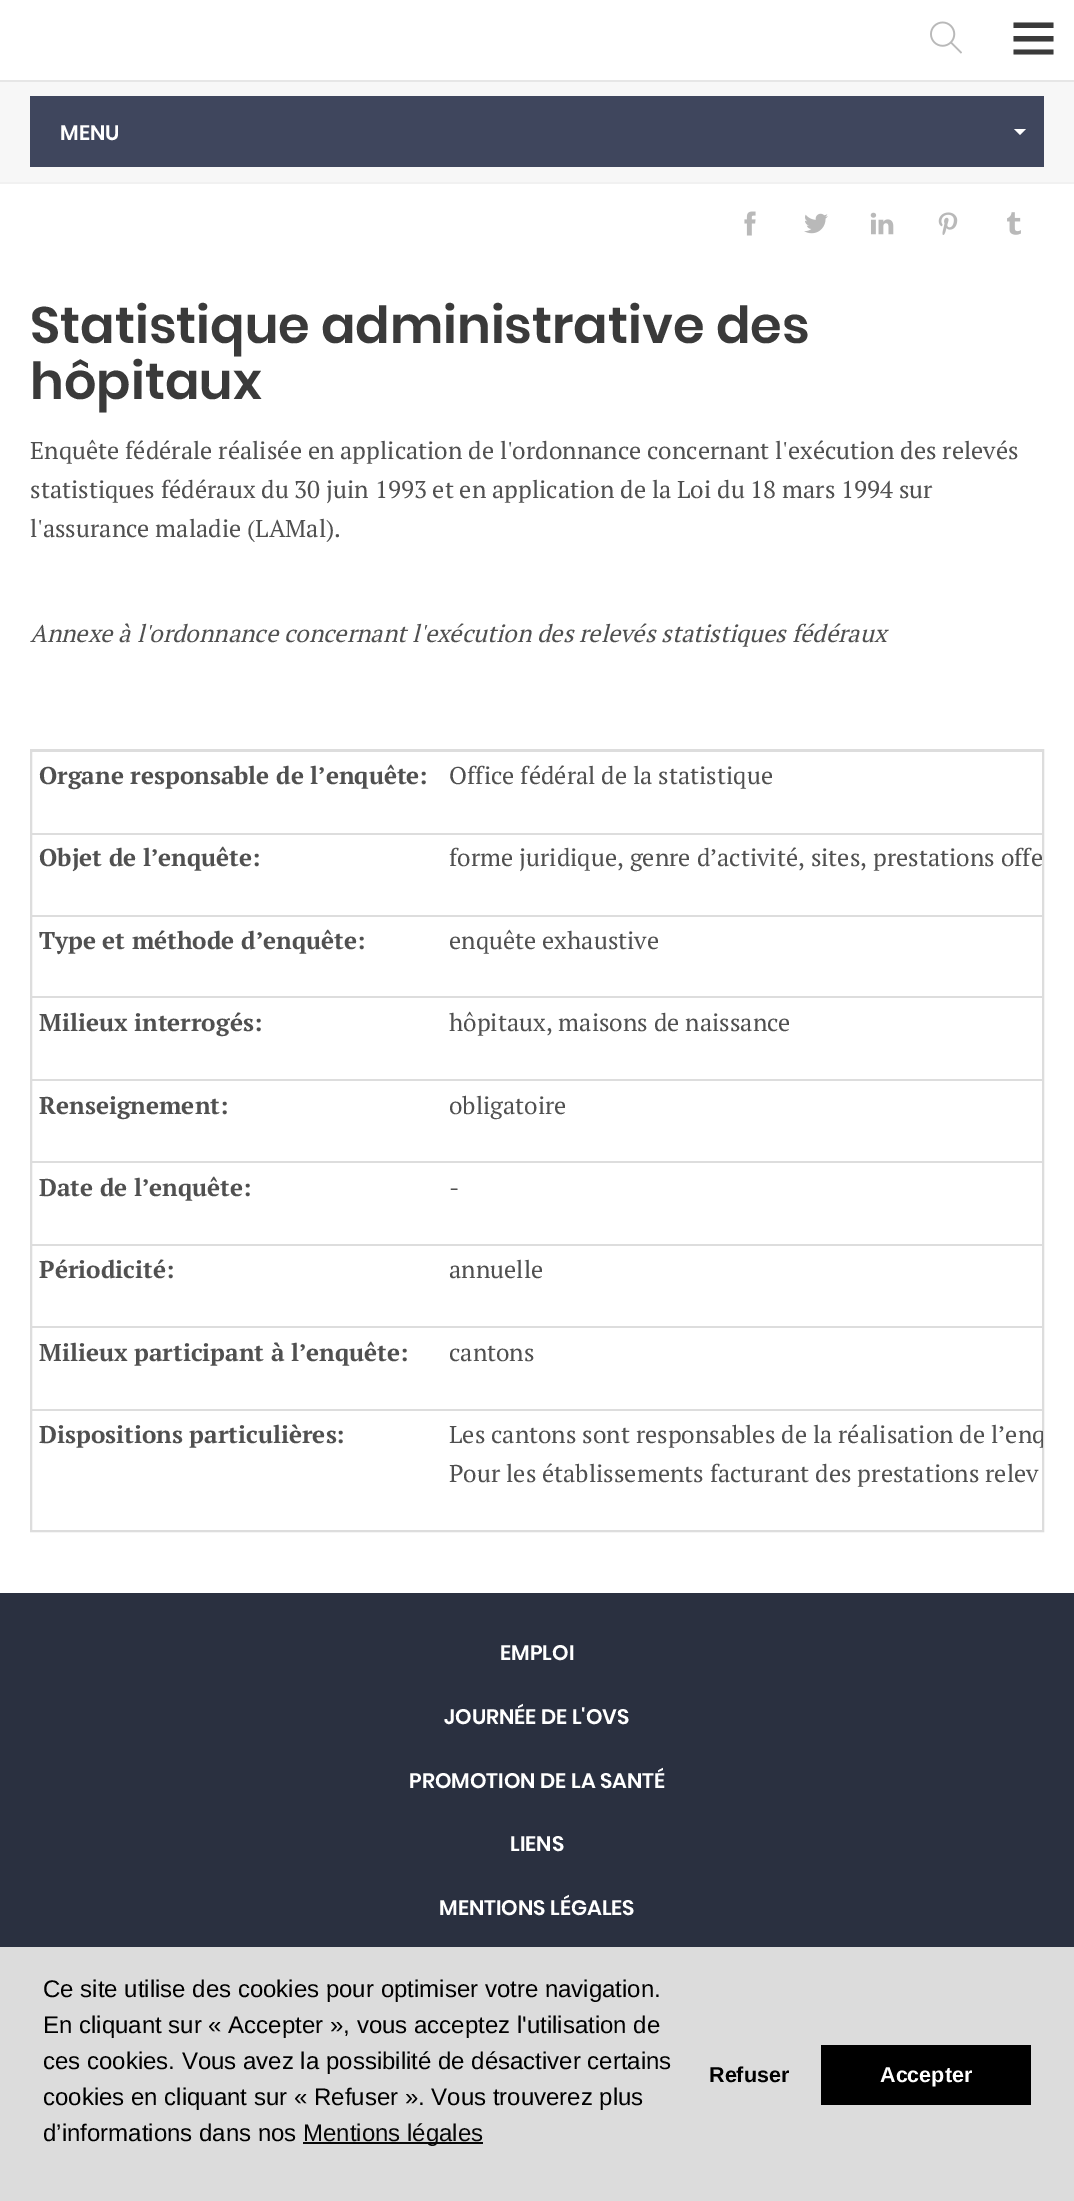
%!PS
<< /PageSize [1074 2201] >> setpagedevice
/rgb { dup -16 bitshift 255 div exch dup -8 bitshift 255 and 255 div exch 255 and 255 div setrgbcolor } def
/font { [ exch dup neg 0 0 3 -1 roll 0 0 ] selectfont } def
/text { moveto show } def
/picture { 5 dict begin { /h /w /y /x /name } { exch def } forall
  gsave x y translate w h scale
  w h 8 [w 0 0 h 0 0] name (r) file false 3 colorimage grestore end } def
0 2201 translate 1 -1 scale
4 setmiterlimit
/s1 { /Poppins-SemiBold 21 font 16#FFFFFF rgb } def
/s2 { /Poppins-SemiBold 51 font 16#3A3A3A rgb } def
/s3 { /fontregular-Regular 24.3 font 16#505050 rgb } def
/s4 { /fontregular-Italic 24.3 font 16#505050 rgb } def
/s5 { /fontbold-Bold 24.3 font 16#505050 rgb } def
/s6 { /LiberationSans-Regular 24 font 16#000000 rgb } def
/s7 { /LiberationSans-Regular 24 font 16#070707 rgb } def
/s8 { /LiberationSans-Bold 21.5 font 16#000000 rgb } def
/s9 { /LiberationSans-Bold 21.5 font 16#FFFFFF rgb } def
16#FFFFFF rgb
0 0 1074 2201 rectfill
16#E6E6E6 rgb
0 80 1074 2 rectfill
(pic1.raw) 930 21 32 33 picture
16#3A3A3A rgb
1053.5 22.5 moveto 1053.5 28 lineto 1013.5 28 lineto 1013.5 22.5 lineto closepath 1013.5 41.5 moveto 1053.5 41.5 lineto 1053.5 36 lineto 1013.5 36 lineto closepath 1013.5 54.5 moveto 1053.5 54.5 lineto 1053.5 49.5 lineto 1013.5 49.5 lineto closepath fill
16#F7F7F7 rgb
0 82 1074 100 rectfill
16#F1F1F1 rgb
0 182 1074 2 rectfill
16#3F465D rgb
30 96 1014 71 rectfill
s1
(MENU) 60 140 text
1014 129 moveto 1026 129 lineto 1020 135 lineto closepath fill
(pic2.raw) 744 211 12 25 picture
(pic3.raw) 804 213 24 21 picture
(pic4.raw) 870 212 24 23 picture
(pic5.raw) 938 212 20 23 picture
(pic6.raw) 1007 212 14 23 picture
s2
(Statistique administrative des) 30 343 text
(hôpitaux) 30 399 text
s3
(Enquête fédérale réalisée en application de l'ordonnance concernant l'exécution des relevés) 30 459 text
(statistiques fédéraux du 30 juin 1993 et en application de la Loi du 18 mars 1994 sur) 30 498 text
(l'assurance maladie \(LAMal\).) 30 537 text
s4
(Annexe à l'ordonnance concernant l'exécution des relevés statistiques fédéraux) 30 642 text
16#DDDDDD rgb
2 setlinewidth
31 750 1012 781 rectstroke
s5
(Organe responsable de l’enquête:) 39 784 text
16#DDDDDD rgb
32 751 1011 1 rectfill
s3
(Office fédéral de la statistique) 449 784 text
s5
(Objet de l’enquête:) 39 866 text
16#DDDDDD rgb
32 833 1011 2 rectfill
s3
(forme juridique, genre d’activité, sites, prestations offe) 449 866 text
s5
(Type et méthode d’enquête:) 39 949 text
16#DDDDDD rgb
32 915 1011 2 rectfill
s3
(enquête exhaustive) 449 949 text
s5
(Milieux interrogés:) 39 1031 text
16#DDDDDD rgb
32 996 1011 2 rectfill
s3
(hôpitaux, maisons de naissance) 449 1031 text
s5
(Renseignement:) 39 1114 text
16#DDDDDD rgb
32 1079 1011 2 rectfill
s3
(obligatoire) 449 1114 text
s5
(Date de l’enquête:) 39 1196 text
16#DDDDDD rgb
32 1161 1011 2 rectfill
s3
(-) 449 1196 text
s5
(Périodicité:) 39 1278 text
16#DDDDDD rgb
32 1244 1011 2 rectfill
s3
(annuelle) 449 1278 text
s5
(Milieux participant à l’enquête:) 39 1361 text
16#DDDDDD rgb
32 1326 1011 2 rectfill
s3
(cantons) 449 1361 text
s5
(Dispositions particulières:) 39 1443 text
16#DDDDDD rgb
32 1409 1011 2 rectfill
gsave
32 750 1011 780 rectclip
s3
(Les cantons sont responsables de la réalisation de l’enq) 449 1443 text
grestore
s3
(Pour les établissements facturant des prestations relev) 449 1482 text
16#2A3040 rgb
0 1593 1074 354 rectfill
s1
(EMPLOI) 500 1660 text
(JOURNÉE DE L'OVS) 444 1724 text
(PROMOTION DE LA SANTÉ) 409 1788 text
(LIENS) 510 1851 text
(MENTIONS LÉGALES) 439 1915 text
16#DCDCDC rgb
0 1947 1074 254 rectfill
s6
(Ce site utilise des cookies pour optimiser votre navigation.) 43 1997 text
(En cliquant sur « Accepter », vous acceptez l'utilisation de) 43 2033 text
(ces cookies. Vous avez la possibilité de désactiver certains) 43 2069 text
(cookies en cliquant sur « Refuser ». Vous trouverez plus) 43 2105 text
(d’informations dans nos) 43 2141 text
16#070707 rgb
303 2142 180 2 rectfill
(Mentions légales) 303 2141 text
s8
(Refuser) 709 2082 text
821 2045 210 60 rectfill
s9
(Accepter) 880 2082 text
showpage
